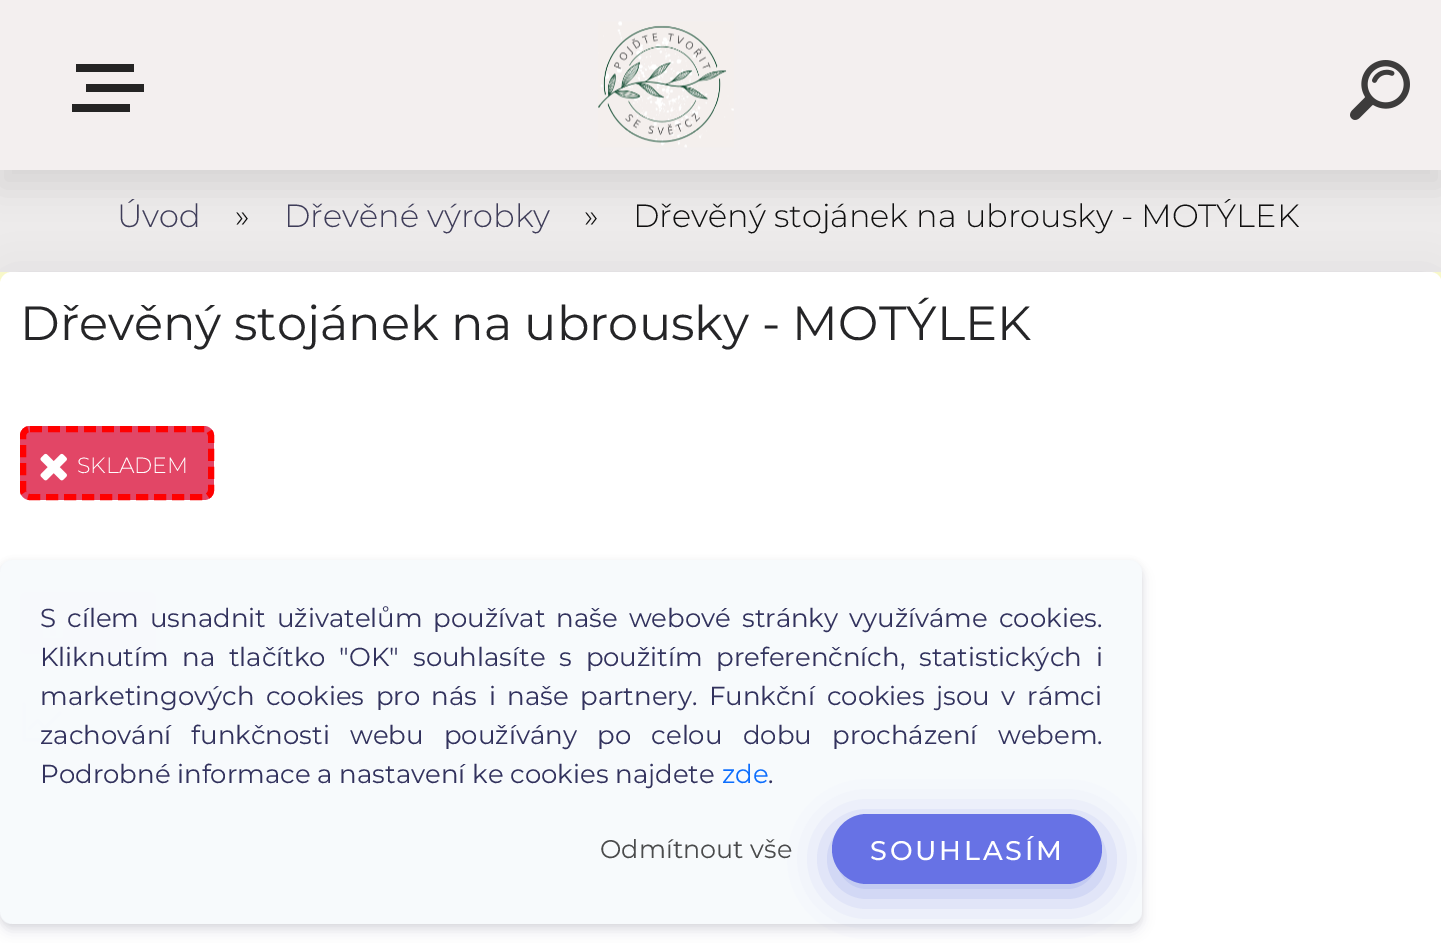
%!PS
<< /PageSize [1441 943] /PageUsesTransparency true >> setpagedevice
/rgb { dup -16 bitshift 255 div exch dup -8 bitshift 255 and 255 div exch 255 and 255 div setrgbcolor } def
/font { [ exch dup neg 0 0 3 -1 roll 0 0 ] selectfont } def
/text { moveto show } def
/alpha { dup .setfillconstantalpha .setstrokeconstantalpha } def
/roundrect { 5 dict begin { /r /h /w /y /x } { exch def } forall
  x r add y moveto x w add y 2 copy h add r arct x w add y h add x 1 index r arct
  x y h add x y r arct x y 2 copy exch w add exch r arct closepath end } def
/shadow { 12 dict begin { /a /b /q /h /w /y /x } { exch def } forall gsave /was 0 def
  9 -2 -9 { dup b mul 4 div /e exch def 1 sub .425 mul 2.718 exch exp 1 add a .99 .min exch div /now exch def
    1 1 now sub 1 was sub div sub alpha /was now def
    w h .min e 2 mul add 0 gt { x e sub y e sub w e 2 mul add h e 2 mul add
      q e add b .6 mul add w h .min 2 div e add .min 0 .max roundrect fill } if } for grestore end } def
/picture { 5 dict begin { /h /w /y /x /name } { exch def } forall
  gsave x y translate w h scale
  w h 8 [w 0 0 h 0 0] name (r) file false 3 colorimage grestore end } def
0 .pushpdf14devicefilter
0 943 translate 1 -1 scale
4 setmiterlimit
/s1 { /Montserrat-Light 32 font 16#3F3D59 rgb } def
/s2 { /Montserrat-Light 32 font 16#101010 rgb } def
/s3 { /Montserrat-Regular 48 font 16#252527 rgb } def
/s4 { /Montserrat-Light 22 font 16#FFFFFF rgb } def
/s5 { /Montserrat-Regular 26 font 16#32325D rgb } def
/s6 { /Montserrat-Regular 26 font 16#0D6EFD rgb } def
/s7 { /Montserrat-Regular 25.5 font 16#4A4B4C rgb } def
16#EDEBEB rgb
0 0 1441 943 rectfill
16#000000 rgb
0 16 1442 170 0 16 0.1 shadow
16#F3EFEF rgb
0 0 1441 170 rectfill
16#242424 rgb
76 64 58 8 rectfill
86 84 58 8 rectfill
72 104 58 8 rectfill
(pic1.raw) 598 21 136 127 picture
(pic2.raw) 1350 60 60 60 picture
s1
(Úvod) 117 227 text
s2
(») 235 227 text
s1
(Dřevěné výrobky) 284 227 text
s2
(») 584 227 text
(Dřevěný stojánek na ubrousky - MOTÝLEK) 633 227 text
16#FFFFCC rgb
0 272 1441 12 rectfill
16#32325D rgb
0 276 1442 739 12 20 0.1 shadow
16#FFFFFF rgb
0 272 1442 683 12 roundrect fill
s3
(Dřevěný stojánek na ubrousky - MOTÝLEK) 20 340 text
16#E24666 rgb
20 426 194 74 10 roundrect fill
16#FF0000 rgb
6 setlinewidth
[12 6] 0 setdash
30 429 moveto 204 429 lineto 208 429 211 432 211 436 curveto 211 490 lineto 211 494 208 497 204 497 curveto 30 497 lineto 26 497 23 494 23 490 curveto 23 436 lineto 23 432 26 429 30 429 curveto closepath stroke
(pic3.raw) 40 453 27 28 picture
s4
(SKLADEM) 77 473 text
16#FF6469 rgb
20 592 136 62 8 roundrect fill
(pic4.raw) 40 615 26 23 picture
(pic5.raw) 22 702 40 40 picture
0.95 alpha
16#FFFFFF rgb
20 592 136 150 rectfill
gsave
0 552 moveto 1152 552 lineto 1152 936 lineto 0 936 lineto closepath 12 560 moveto 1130 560 lineto 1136.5 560 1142 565.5 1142 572 curveto 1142 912 lineto 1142 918.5 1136.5 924 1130 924 curveto 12 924 lineto 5.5 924 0 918.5 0 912 curveto 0 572 lineto 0 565.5 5.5 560 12 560 curveto closepath eoclip newpath
1 alpha
16#000000 rgb
0 562 1142 364 12 3 0.08 shadow
grestore
gsave
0 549 moveto 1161 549 lineto 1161 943 lineto 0 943 lineto closepath 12 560 moveto 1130 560 lineto 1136.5 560 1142 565.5 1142 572 curveto 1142 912 lineto 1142 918.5 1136.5 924 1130 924 curveto 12 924 lineto 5.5 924 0 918.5 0 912 curveto 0 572 lineto 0 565.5 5.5 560 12 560 curveto closepath eoclip newpath
1 alpha
16#32325D rgb
0 568 1142 364 12 6 0.11 shadow
grestore
0.9 alpha
16#F6F9FC rgb
0 560 1142 364 12 roundrect fill
/Montserrat-Regular 26 font
1 alpha
16#32325D rgb
40 627 moveto 4.25 0 32 (S cílem usnadnit uživatelům používat naše webové stránky využíváme cookies.) widthshow
40 666 moveto 7 0 32 (Kliknutím na tlačítko "OK" souhlasíte s použitím preferenčních, statistických i) widthshow
40 705 moveto 4.75 0 32 (marketingových cookies pro nás i naše partnery. Funkční cookies jsou v rámci) widthshow
40 744 moveto 13.5 0 32 (zachování funkčnosti webu používány po celou dobu procházení webem.) widthshow
(Podrobné informace a nastavení ke cookies najdete) 40 783 text
s6
(zde) 722 783 text
s5
(.) 768 783 text
16#3A54D6 rgb
832 824 270 70 35 20 0.4 shadow
s7
(Odmítnout vše) 600 858 text
16#6772E5 rgb
832 814 270 70 35 roundrect fill
/Montserrat-Medium 27 font
16#FFFFFF rgb
870 860 moveto 2.75 0 (SOUHLASÍM) ashow
.poppdf14devicefilter showpage
